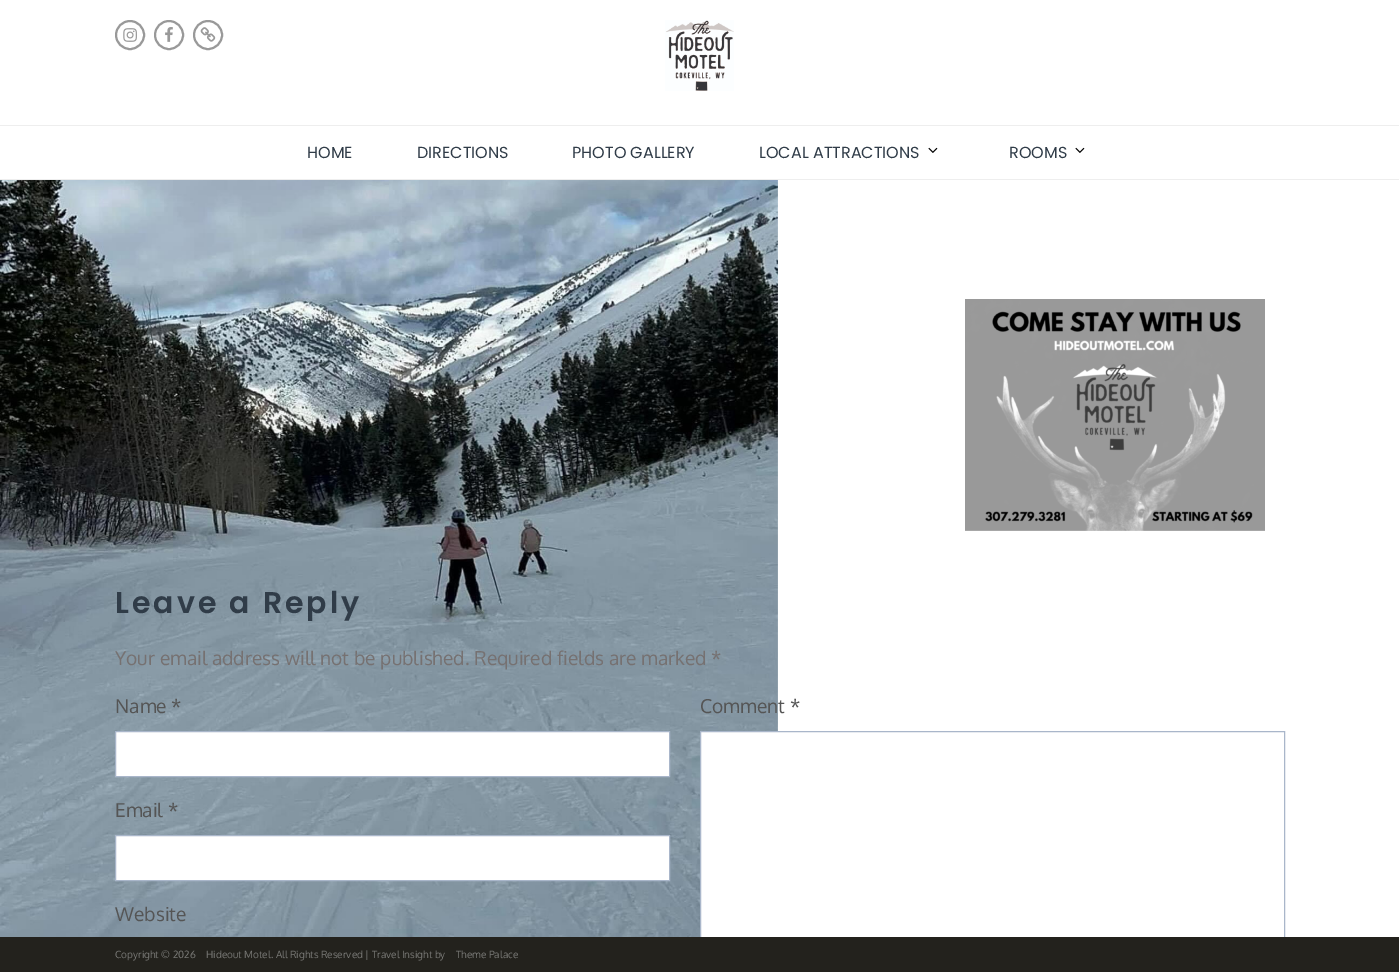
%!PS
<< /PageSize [1399 972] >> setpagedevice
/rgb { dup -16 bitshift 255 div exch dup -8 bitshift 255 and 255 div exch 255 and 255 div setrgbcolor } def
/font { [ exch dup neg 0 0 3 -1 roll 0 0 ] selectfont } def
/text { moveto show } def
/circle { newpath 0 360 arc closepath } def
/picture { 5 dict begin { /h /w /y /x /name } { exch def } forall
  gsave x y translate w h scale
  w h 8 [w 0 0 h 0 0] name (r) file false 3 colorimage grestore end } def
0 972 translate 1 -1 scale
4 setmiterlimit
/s1 { /Poppins-Regular 16 font 16#303C48 rgb } def
/s2 { /Oxygen-Regular 19.2 font 16#767171 rgb } def
/s3 { /Oxygen-Regular 19.2 font 16#555555 rgb } def
/s4 { /Oxygen-Regular 10 font 16#787875 rgb } def
16#FFFFFF rgb
0 0 1399 972 rectfill
(pic1.raw) 0 180 778 757 picture
16#999999 rgb
2 setlinewidth
130 35 14 circle stroke
(pic2.raw) 123 28 14 14 picture
169 35 14 circle stroke
(pic3.raw) 165 27 8 15 picture
208 35 14 circle stroke
(pic4.raw) 200 27 16 15 picture
(pic5.raw) 665 20 69 71 picture
16#EEEEEE rgb
0 125 1399 1 rectfill
0 179 1399 1 rectfill
s1
(HOME) 307 158 text
(DIRECTIONS) 417 158 text
(PHOTO GALLERY) 572 158 text
(LOCAL ATTRACTIONS) 759 158 text
(pic6.raw) 928 147 10 6 picture
(ROOMS) 1009 158 text
(pic6.raw) 1075 147 10 6 picture
(pic7.raw) 965 299 300 232 picture
/Poppins-SemiBold 30 font
115 613 moveto 3 0 (Leave a Reply) ashow
s2
(Your email address will not be published. Required fields are marked *) 115 665 text
s3
(Name *) 115 713 text
16#FFFFFF rgb
115.5 731.5 moveto 669.5 731.5 lineto 669.5 776.5 lineto 115.5 776.5 lineto closepath gsave fill grestore
16#A9B6CA rgb
1 setlinewidth
stroke
s3
(Comment *) 700 713 text
16#FFFFFF rgb
701 732 77 205 rectfill
16#A9B6CA rgb
700.5 731.5 584 237 rectstroke
s3
(Email *) 115 817 text
16#FFFFFF rgb
115.5 835.5 moveto 669.5 835.5 lineto 669.5 880.5 lineto 115.5 880.5 lineto closepath gsave fill grestore
16#A9B6CA rgb
stroke
s3
(Website) 115 921 text
16#23221D rgb
0 937 1399 35 rectfill
s4
(Copyright © 2026) 115 958 text
(Hideout Motel. All Rights Reserved | Travel Insight by) 206 958 text
(Theme Palace) 456 958 text
showpage
